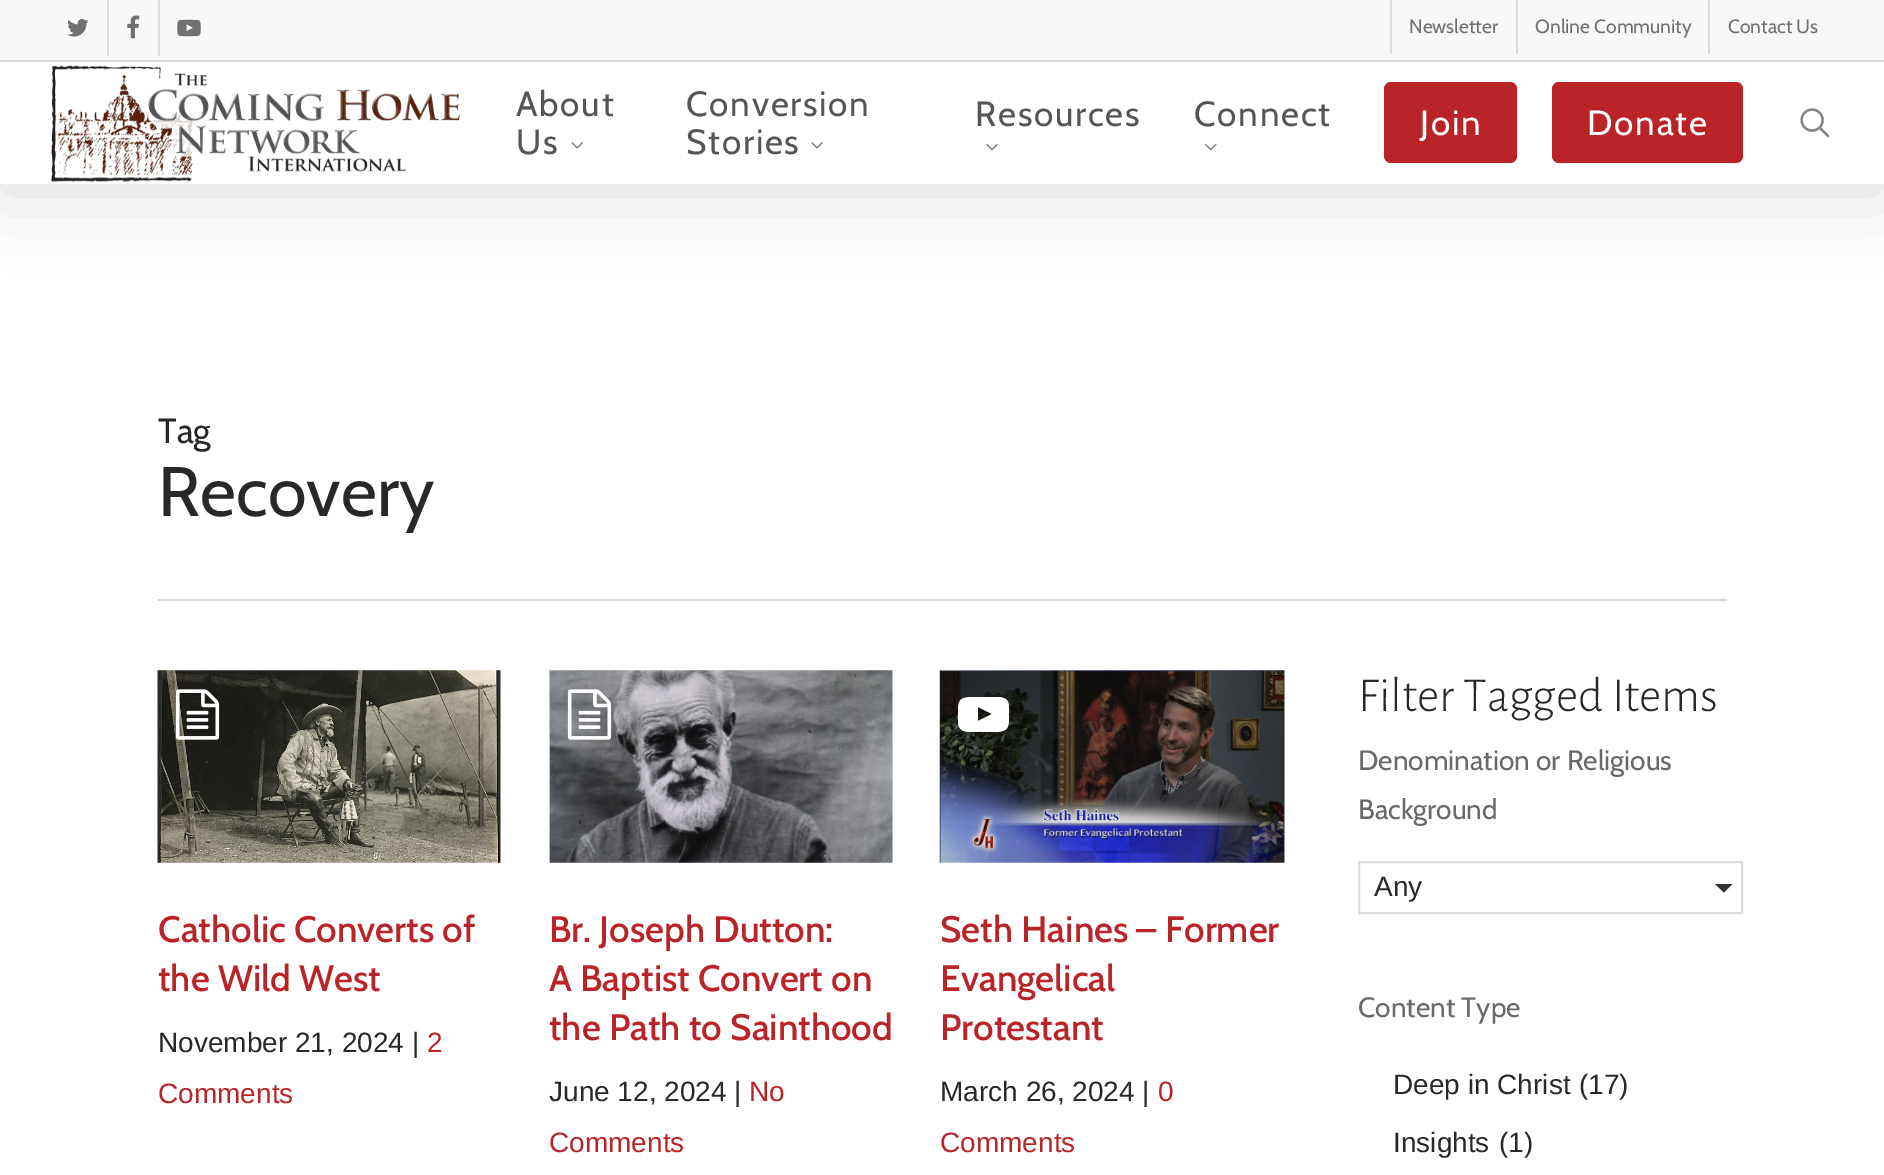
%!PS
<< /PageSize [1884 1175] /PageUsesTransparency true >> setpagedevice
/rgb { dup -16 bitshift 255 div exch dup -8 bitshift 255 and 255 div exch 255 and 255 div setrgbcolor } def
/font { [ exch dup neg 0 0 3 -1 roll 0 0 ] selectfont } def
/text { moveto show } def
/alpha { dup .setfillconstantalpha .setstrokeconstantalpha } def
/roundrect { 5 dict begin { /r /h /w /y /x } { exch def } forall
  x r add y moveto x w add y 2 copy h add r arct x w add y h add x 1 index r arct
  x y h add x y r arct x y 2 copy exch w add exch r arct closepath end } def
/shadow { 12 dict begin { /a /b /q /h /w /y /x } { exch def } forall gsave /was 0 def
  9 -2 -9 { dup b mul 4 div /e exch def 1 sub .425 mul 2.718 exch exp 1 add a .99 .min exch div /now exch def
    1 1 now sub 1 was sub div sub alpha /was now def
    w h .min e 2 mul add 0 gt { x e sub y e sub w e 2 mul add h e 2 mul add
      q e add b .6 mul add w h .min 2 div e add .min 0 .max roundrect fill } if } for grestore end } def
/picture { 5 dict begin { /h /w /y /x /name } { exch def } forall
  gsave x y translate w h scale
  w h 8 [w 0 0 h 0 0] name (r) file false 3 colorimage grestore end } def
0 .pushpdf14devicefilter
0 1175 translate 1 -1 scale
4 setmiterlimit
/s1 { /Cabin-Regular 19.25 font 16#707070 rgb } def
/s2 { /Cabin-Regular 35 font 16#282828 rgb } def
/s3 { /Cabin-Regular 70 font 16#282828 rgb } def
/s4 { /Cabin-Medium 36.75 font 16#BA2328 rgb } def
/s5 { /LiberationSans-Regular 28 font 16#282828 rgb } def
/s6 { /LiberationSans-Regular 28 font 16#BA2328 rgb } def
/s7 { /AlegreyaSans-Light 49 font 16#282828 rgb } def
/s8 { /Cabin-Regular 28 font 16#696969 rgb } def
16#FFFFFF rgb
0 0 1884 1175 rectfill
16#000000 rgb
0 5 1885 184 0 39.5 0.15 shadow
16#FFFFFF rgb
0 62 1884 122 rectfill
16#F8F8F8 rgb
0 0 1884 60 rectfill
16#DDDDDD rgb
0 60 1884 2 rectfill
(pic1.raw) 67 19 22 18 picture
107 0 2 56 rectfill
(pic2.raw) 127 15 13 24 picture
158 0 2 56 rectfill
(pic3.raw) 177 19 24 18 picture
1390 0 2 54 rectfill
s1
(Newsletter) 1409 33 text
16#DDDDDD rgb
1516 0 2 54 rectfill
s1
(Online Community) 1535 33 text
16#DDDDDD rgb
1708 0 2 54 rectfill
s1
(Contact Us) 1728 33 text
(pic4.raw) 51 65 409 117 picture
/Cabin-Regular 35 font
16#555555 rgb
516 116 moveto 1.75 0 (About) ashow
516 154 moveto 1.75 0 (Us) ashow
(pic5.raw) 571 142 12 7 picture
686 116 moveto 1.75 0 (Conversion) ashow
686 154 moveto 1.75 0 (Stories) ashow
(pic6.raw) 811 142 12 7 picture
975 126 moveto 1.75 0 (Resources) ashow
(pic7.raw) 986 143 12 8 picture
1194 126 moveto 1.75 0 (Connect) ashow
(pic8.raw) 1205 143 12 8 picture
16#BA2328 rgb
1384 82 133 81 7 roundrect fill
16#FFFFFF rgb
1420 135 moveto 1.75 0 (Join) ashow
16#BA2328 rgb
1552 82 191 81 7 roundrect fill
16#FFFFFF rgb
1587 135 moveto 1.75 0 (Donate) ashow
(pic9.raw) 1800 108 30 30 picture
16#D9D9D9 rgb
158 599 1569 2 rectfill
s2
(Tag) 158 443 text
s3
(Recovery) 158 516 text
(pic10.raw) 157 670 344 193 picture
(pic11.raw) 175 689 45 51 picture
s4
(Catholic Converts of) 158 942 text
(the Wild West) 158 991 text
s5
(November 21, 2024 |) 158 1052 text
s6
(2) 427 1052 text
(Comments) 158 1103 text
(pic12.raw) 549 670 344 193 picture
(pic13.raw) 567 689 45 51 picture
s4
(Br. Joseph Dutton:) 549 942 text
(A Baptist Convert on) 549 991 text
(the Path to Sainthood) 549 1040 text
s5
(June 12, 2024 |) 549 1101 text
s6
(No) 749 1101 text
(Comments) 549 1152 text
(pic14.raw) 939 670 346 193 picture
16#FFFFFF rgb
978 721 moveto 992 714 lineto 978 707 lineto closepath 984 697 moveto 999 697 lineto 1010 698 1009 704 1009 714 curveto 1009 727 1009 731 997 732 curveto 969 732 lineto 957 731 958 725 958 714 curveto 958 702 958 698 970 697 curveto closepath fill
s4
(Seth Haines – Former) 940 942 text
(Evangelical) 940 991 text
(Protestant) 940 1040 text
s5
(March 26, 2024 |) 940 1101 text
s6
(0) 1158 1101 text
(Comments) 940 1152 text
s7
(Filter Tagged Items) 1358 711 text
s8
(Denomination or Religious) 1358 770 text
(Background) 1358 819 text
16#DDDDDD rgb
2 setlinewidth
1359 862 383 51 rectstroke
s5
(Any) 1374 896 text
16#333333 rgb
1715 884 moveto 1732.5 884 lineto 1724 892.5 lineto closepath fill
s8
(Content Type) 1358 1017 text
s5
(Deep in Christ) 1393 1094 text
(\(17\)) 1579 1094 text
(Insights) 1393 1152 text
(\(1\)) 1499 1152 text
.poppdf14devicefilter showpage
